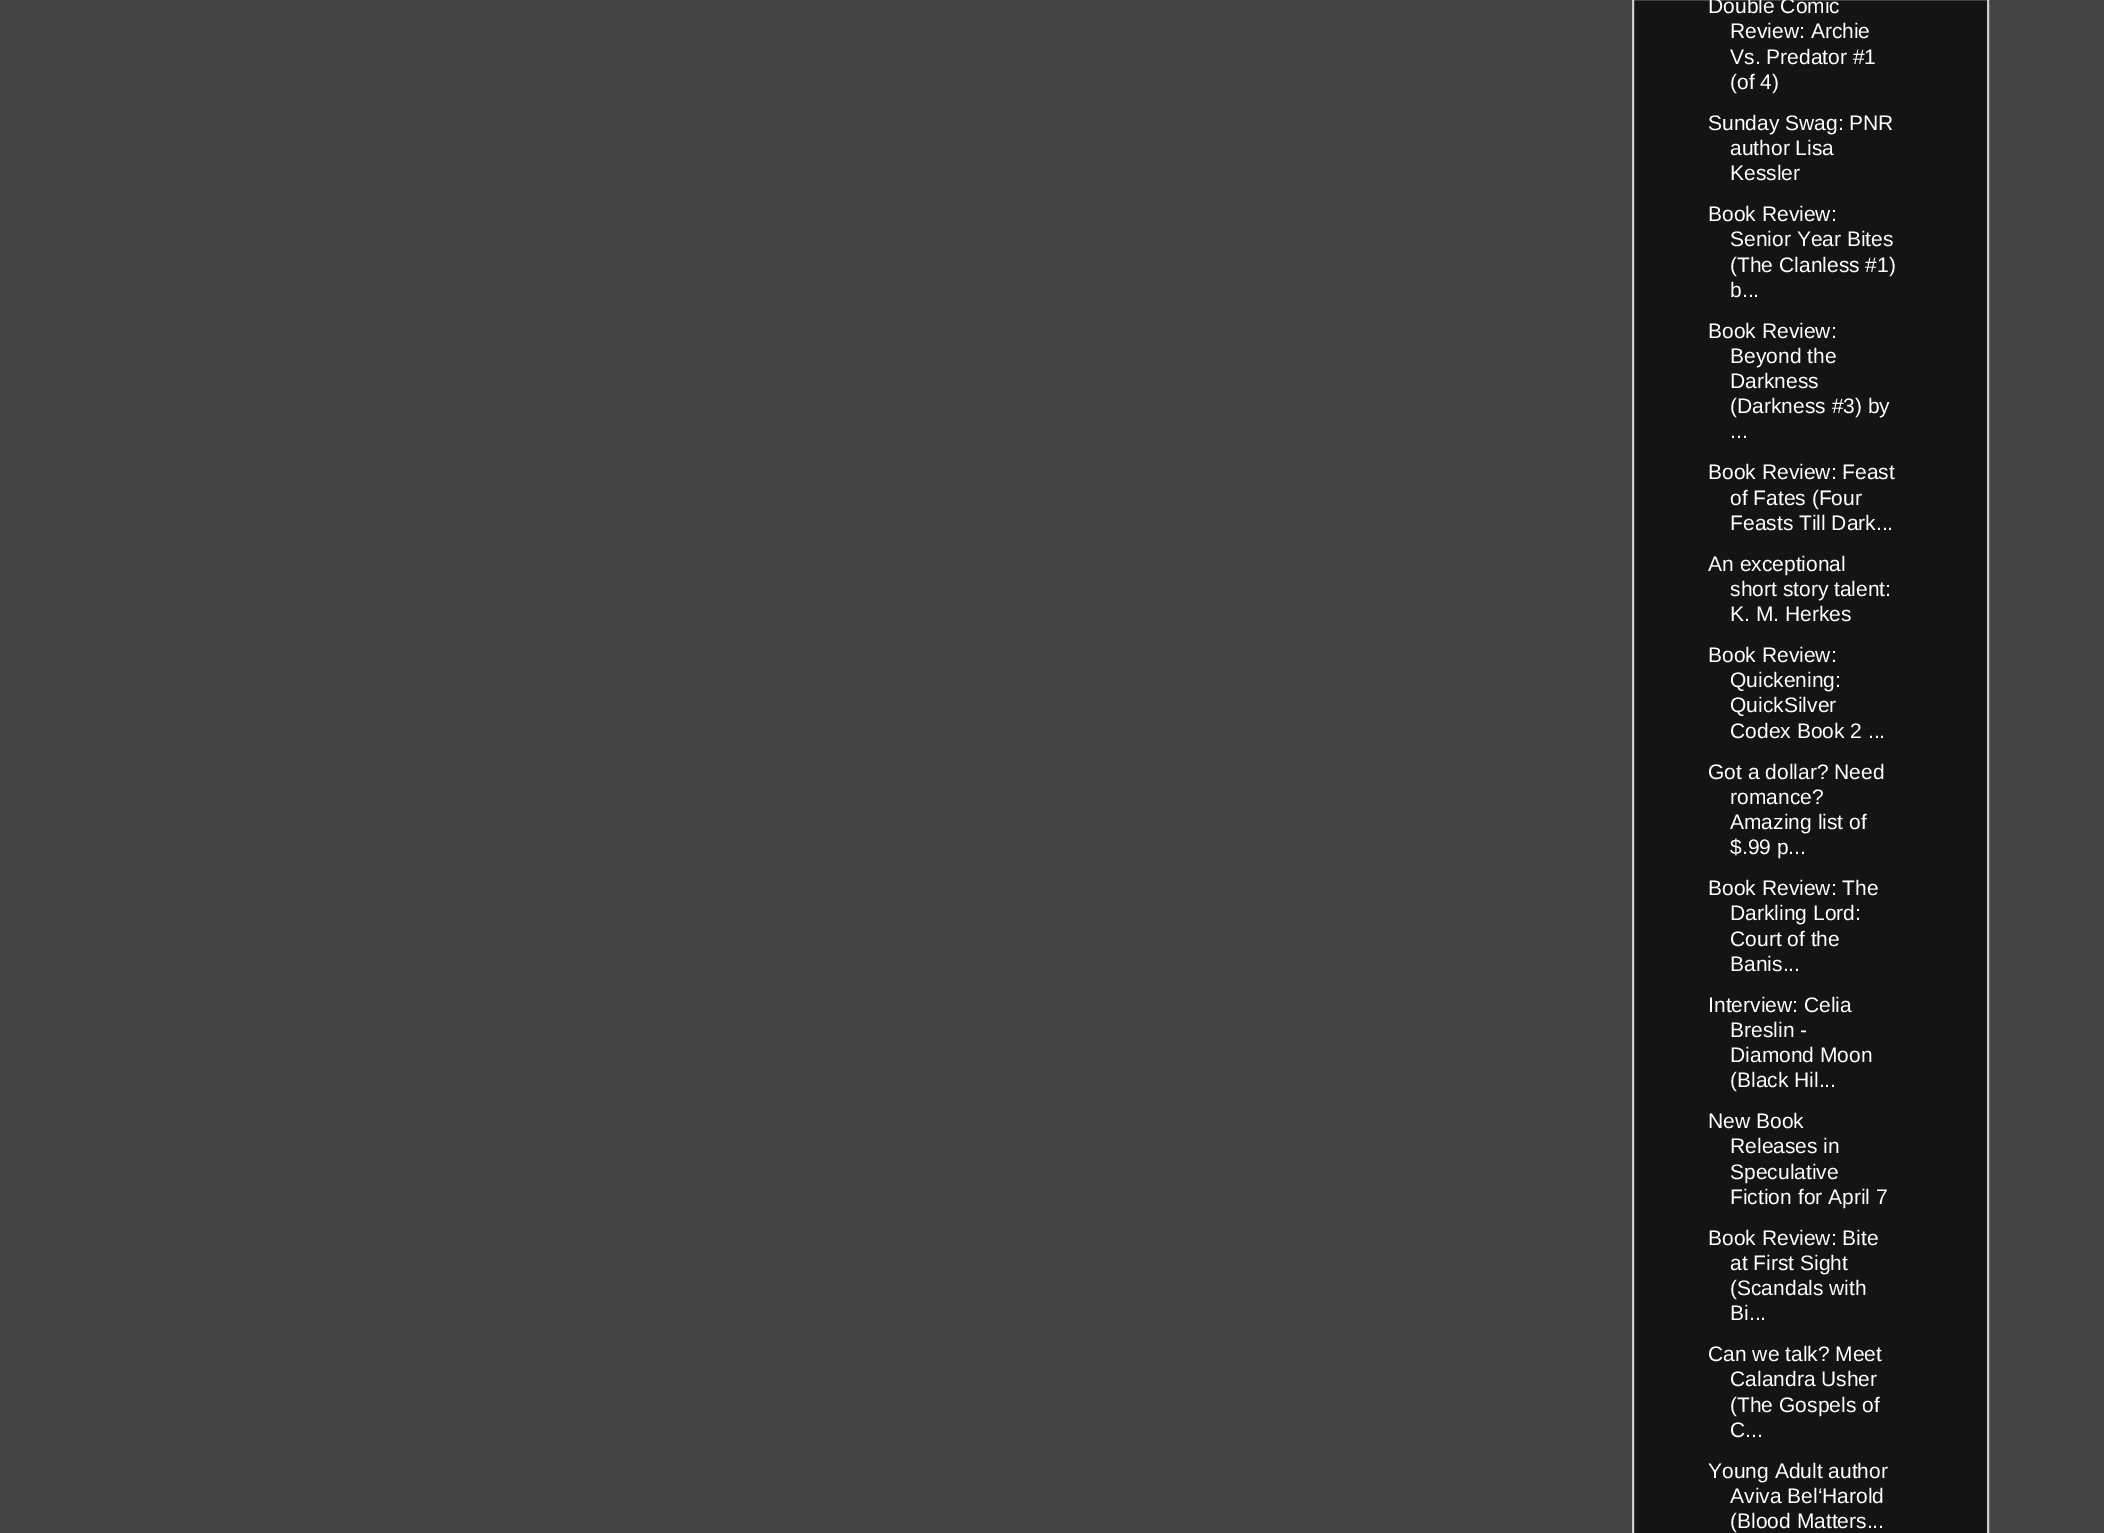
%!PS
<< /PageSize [2104 1533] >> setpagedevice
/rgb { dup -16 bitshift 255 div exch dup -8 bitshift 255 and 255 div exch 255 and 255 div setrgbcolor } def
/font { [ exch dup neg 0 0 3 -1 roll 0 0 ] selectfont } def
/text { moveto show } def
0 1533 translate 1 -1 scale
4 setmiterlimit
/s1 { /LiberationSans-Regular 21 font 16#FFFFFF rgb } def
16#444444 rgb
0 0 2104 1533 rectfill
16#141414 rgb
1633 -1 moveto 1988 -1 lineto 1988 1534 lineto 1633 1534 lineto closepath gsave fill grestore
16#CCCCCC rgb
2 setlinewidth
stroke
s1
(Double Comic) 1708 13 text
(Review: Archie) 1730 38 text
(Vs. Predator #1) 1730 64 text
(\(of 4\)) 1730 89 text
(Sunday Swag: PNR) 1708 130 text
(author Lisa) 1730 155 text
(Kessler) 1730 180 text
(Book Review:) 1708 221 text
(Senior Year Bites) 1730 246 text
(\(The Clanless #1\)) 1730 272 text
(b...) 1730 297 text
(Book Review:) 1708 338 text
(Beyond the) 1730 363 text
(Darkness) 1730 388 text
(\(Darkness #3\) by) 1730 413 text
(...) 1730 438 text
(Book Review: Feast) 1708 479 text
(of Fates \(Four) 1730 505 text
(Feasts Till Dark...) 1730 530 text
(An exceptional) 1708 571 text
(short story talent:) 1730 596 text
(K. M. Herkes) 1730 621 text
(Book Review:) 1708 662 text
(Quickening:) 1730 687 text
(QuickSilver) 1730 712 text
(Codex Book 2 ...) 1730 738 text
(Got a dollar? Need) 1708 779 text
(romance?) 1730 804 text
(Amazing list of) 1730 829 text
($.99 p...) 1730 854 text
(Book Review: The) 1708 895 text
(Darkling Lord:) 1730 920 text
(Court of the) 1730 946 text
(Banis...) 1730 971 text
(Interview: Celia) 1708 1012 text
(Breslin -) 1730 1037 text
(Diamond Moon) 1730 1062 text
(\(Black Hil...) 1730 1087 text
(New Book) 1708 1128 text
(Releases in) 1730 1153 text
(Speculative) 1730 1179 text
(Fiction for April 7) 1730 1204 text
(Book Review: Bite) 1708 1245 text
(at First Sight) 1730 1270 text
(\(Scandals with) 1730 1295 text
(Bi...) 1730 1320 text
(Can we talk? Meet) 1708 1361 text
(Calandra Usher) 1730 1386 text
(\(The Gospels of) 1730 1412 text
(C...) 1730 1437 text
(Young Adult author) 1708 1478 text
(Aviva Bel‘Harold) 1730 1503 text
(\(Blood Matters...) 1730 1528 text
showpage
